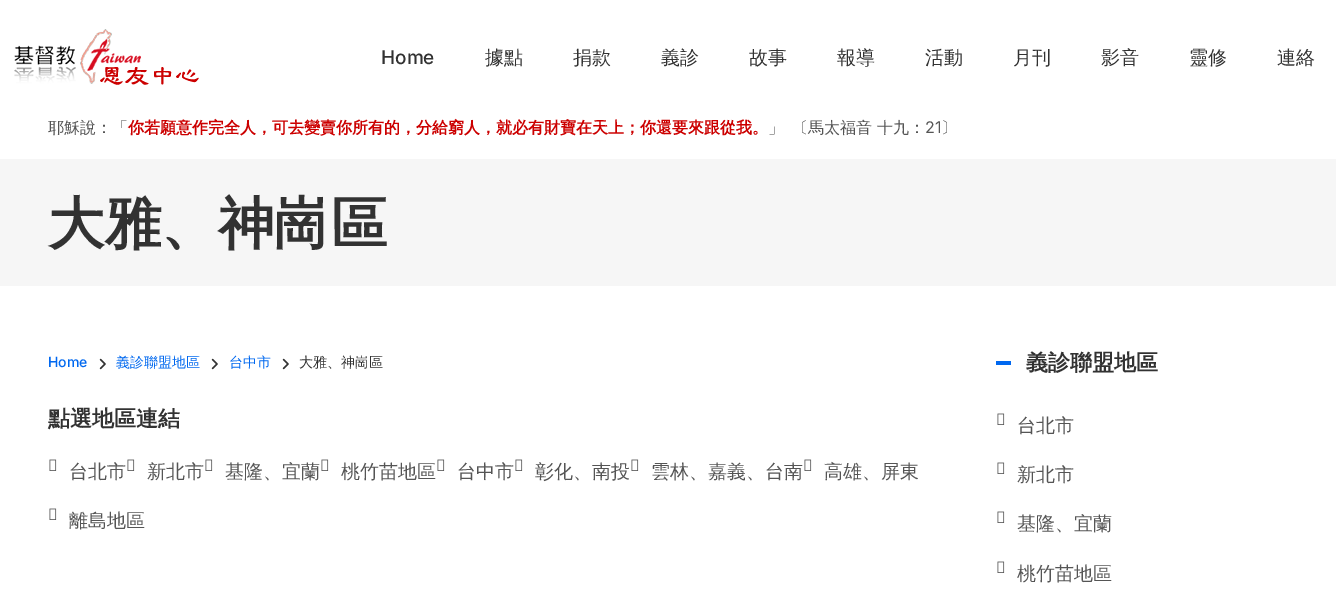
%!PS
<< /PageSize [1336 601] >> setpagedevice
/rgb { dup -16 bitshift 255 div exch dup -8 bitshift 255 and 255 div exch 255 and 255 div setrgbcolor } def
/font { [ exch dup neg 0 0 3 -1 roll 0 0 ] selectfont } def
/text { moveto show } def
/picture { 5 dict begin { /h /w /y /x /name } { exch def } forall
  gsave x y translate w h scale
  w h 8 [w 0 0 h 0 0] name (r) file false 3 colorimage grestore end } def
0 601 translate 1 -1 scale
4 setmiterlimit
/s1 { /Inter-Medium 19 font 16#323232 rgb } def
/s2 { /WenQuanYiZenHei-Medium 19 font 16#323232 rgb } def
/s3 { /WenQuanYiZenHei-Medium 16 font 16#555555 rgb } def
/s4 { /WenQuanYiZenHei-Bold 16 font 16#CC0000 rgb } def
/s5 { /Inter-Regular 16 font 16#555555 rgb } def
/s6 { /WenQuanYiZenHei-Bold 56.5 font 16#323232 rgb } def
/s7 { /Inter-Medium 14 font 16#0068F0 rgb } def
/s8 { /WenQuanYiZenHei-Medium 14 font 16#0068F0 rgb } def
/s9 { /WenQuanYiZenHei-Medium 14 font 16#323232 rgb } def
/s10 { /WenQuanYiZenHei-Bold 22 font 16#323232 rgb } def
/s11 { /WenQuanYiZenHei-Medium 19 font 16#555555 rgb } def
16#FFFFFF rgb
0 0 1336 601 rectfill
(pic1.raw) 14 29 185 56 picture
s1
(Home) 381 64 text
s2
(據點) 485 64 text
(捐款) 573 64 text
(義診) 661 64 text
(故事) 749 64 text
(報導) 837 64 text
(活動) 925 64 text
(月刊) 1013 64 text
(影音) 1101 64 text
(靈修) 1189 64 text
(連絡) 1277 64 text
s3
(耶穌說：「) 48 133 text
s4
(你若願意作完全人，可去變賣你所有的，分給窮人，就必有財寶在天上；你還要來跟從我。) 128 133 text
s3
(」) 768 133 text
(〔馬太福音 十九：) 792 133 text
s5
(21) 925 133 text
s3
(〕) 941 133 text
16#F6F6F6 rgb
0 159 1336 127 rectfill
s6
(大雅、神崗區) 48 243 text
s7
(Home) 48 367 text
(pic2.raw) 99 358 7 12 picture
s8
(義診聯盟地區) 116 367 text
(pic2.raw) 211 358 7 12 picture
(台中市) 229 367 text
(pic2.raw) 282 358 7 12 picture
s9
(大雅、神崗區) 299 367 text
s10
(點選地區連結) 48 426 text
(pic3.raw) 49 459 8 12 picture
s11
(台北市) 69 478 text
(pic3.raw) 127 459 8 12 picture
(新北市) 147 478 text
(pic3.raw) 205 459 8 12 picture
(基隆、宜蘭) 225 478 text
(pic3.raw) 321 459 8 12 picture
(桃竹苗地區) 341 478 text
(pic3.raw) 437 459 8 12 picture
(台中市) 457 478 text
(pic3.raw) 515 459 8 12 picture
(彰化、南投) 535 478 text
(pic3.raw) 631 459 8 12 picture
(雲林、嘉義、台南) 651 478 text
(pic3.raw) 804 459 8 12 picture
(高雄、屏東) 824 478 text
(pic3.raw) 49 508 8 12 picture
(離島地區) 69 527 text
16#0068F0 rgb
996 361 15 4 rectfill
s10
(義診聯盟地區) 1026 370 text
(pic3.raw) 997 413 8 12 picture
s11
(台北市) 1017 432 text
(pic3.raw) 997 462 8 12 picture
(新北市) 1017 481 text
(pic3.raw) 997 511 8 12 picture
(基隆、宜蘭) 1017 530 text
(pic3.raw) 997 561 8 12 picture
(桃竹苗地區) 1017 580 text
showpage
